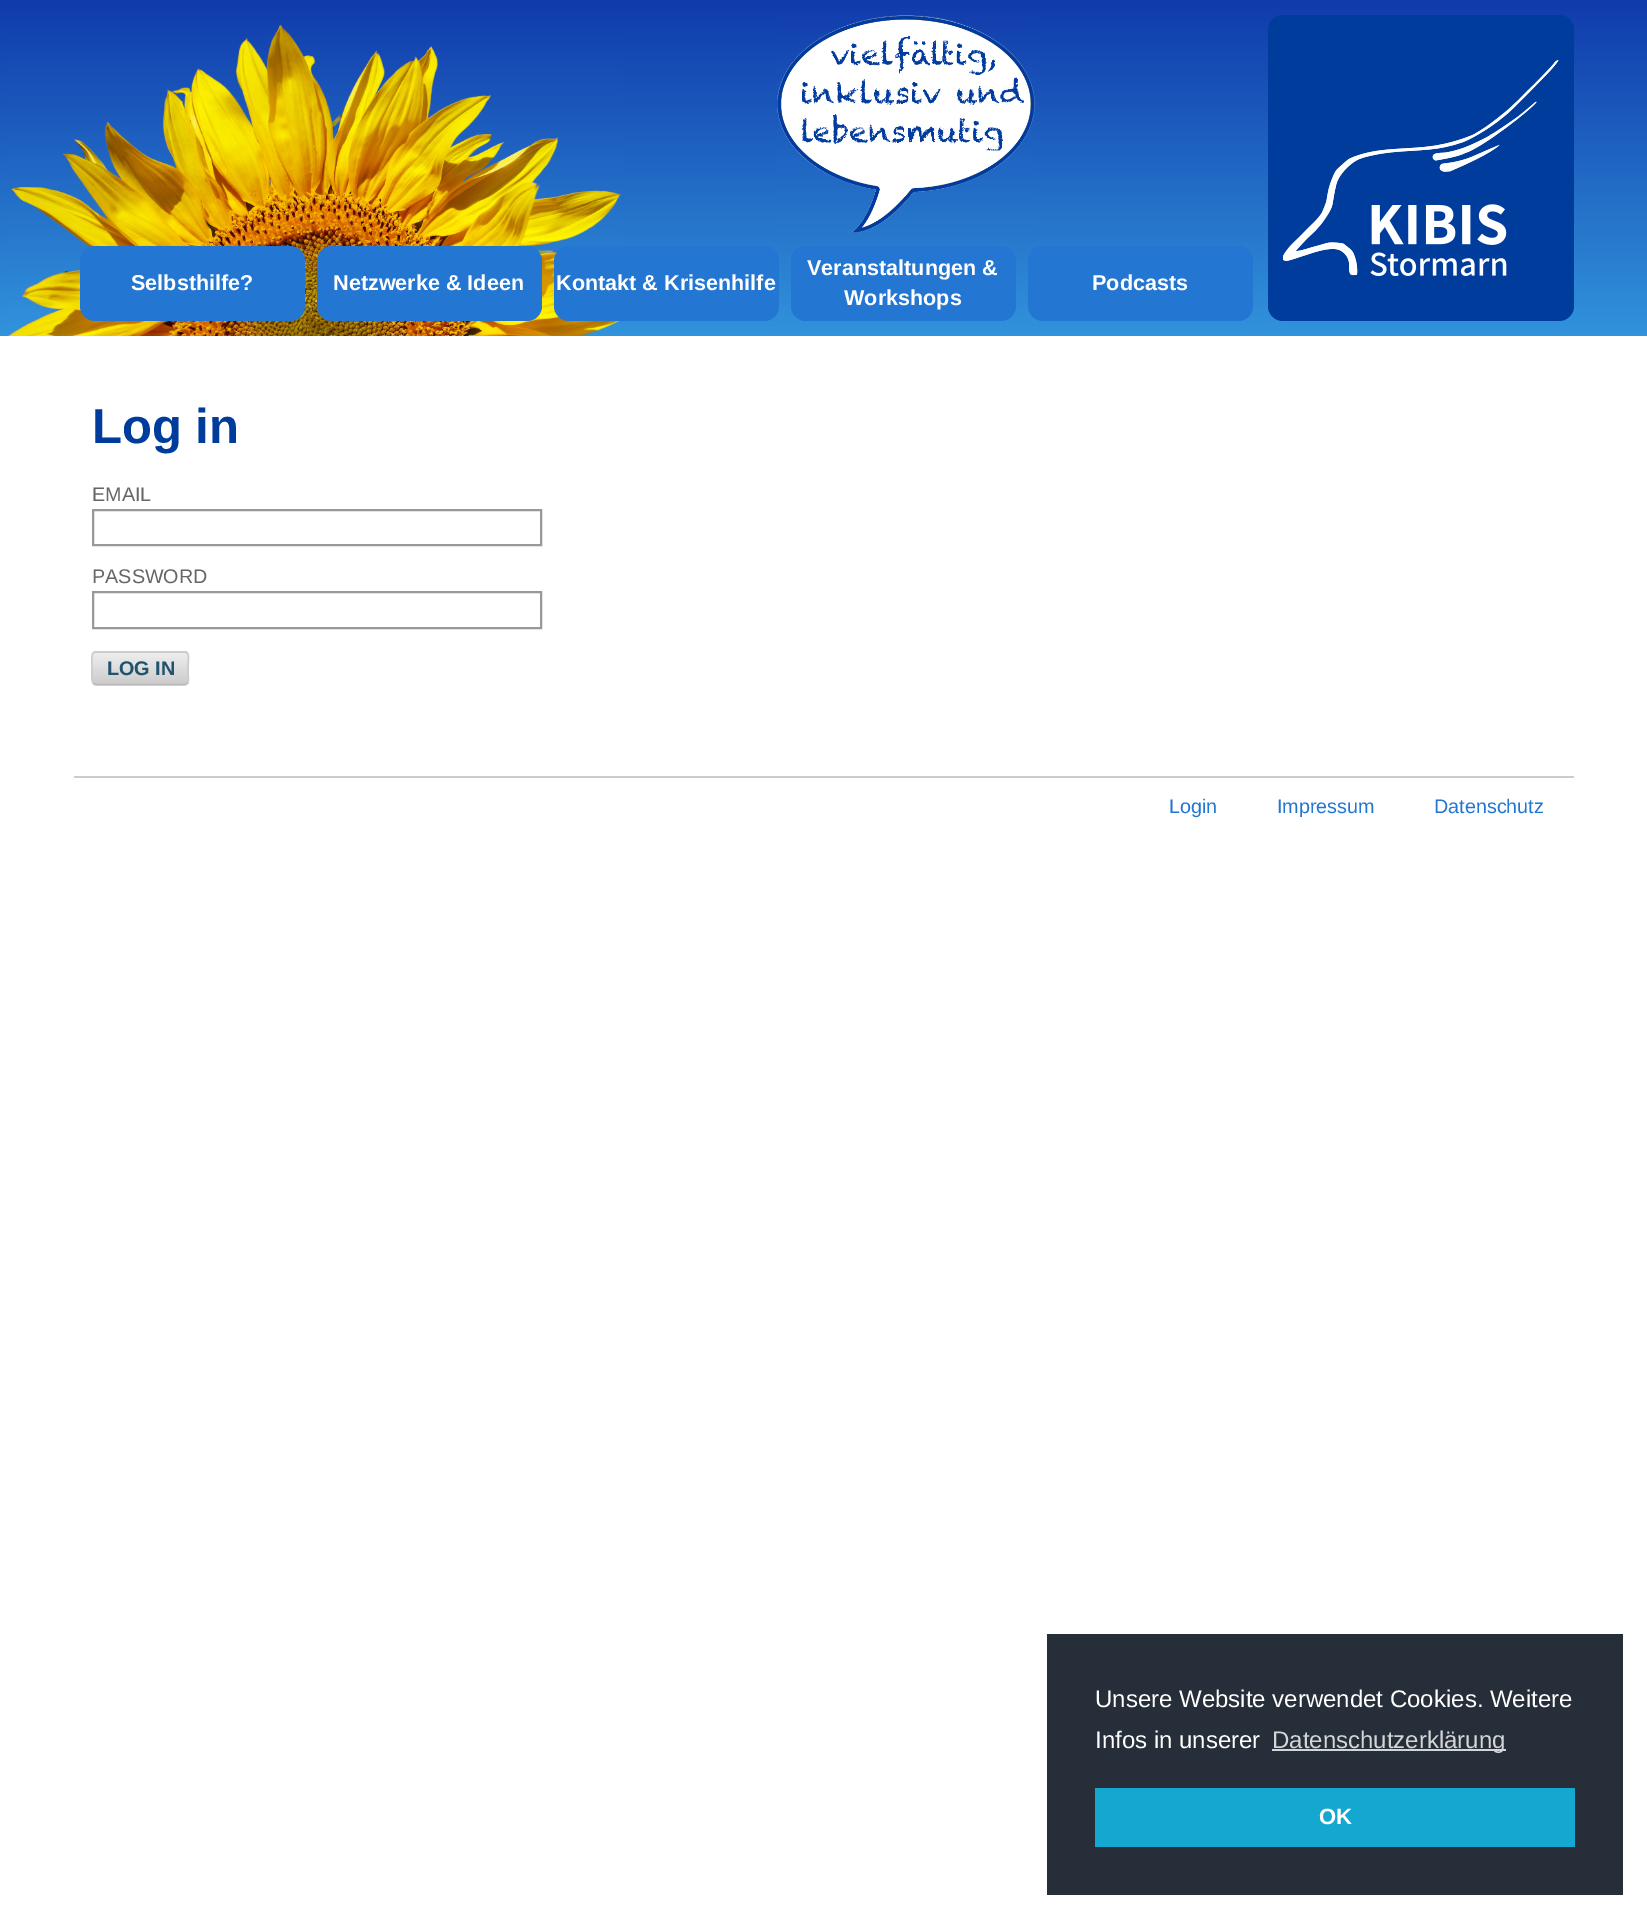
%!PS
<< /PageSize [1647 1918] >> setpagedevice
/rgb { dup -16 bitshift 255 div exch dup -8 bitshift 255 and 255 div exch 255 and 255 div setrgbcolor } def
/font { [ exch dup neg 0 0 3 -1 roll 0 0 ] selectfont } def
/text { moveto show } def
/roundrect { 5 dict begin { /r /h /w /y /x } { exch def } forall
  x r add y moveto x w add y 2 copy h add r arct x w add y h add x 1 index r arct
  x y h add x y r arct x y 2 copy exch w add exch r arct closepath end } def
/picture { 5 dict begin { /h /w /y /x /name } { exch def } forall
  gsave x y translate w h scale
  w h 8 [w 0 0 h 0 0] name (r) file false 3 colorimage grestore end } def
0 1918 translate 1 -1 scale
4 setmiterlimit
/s1 { /LiberationSans-Bold 21.6 font 16#FFFFFF rgb } def
/s2 { /LiberationSans-Bold 49 font 16#003C9C rgb } def
/s3 { /LiberationSans-Regular 19.75 font 16#666666 rgb } def
/s4 { /LiberationSans-Bold 19.75 font 16#21536E rgb } def
/s5 { /LiberationSans-Regular 19.75 font 16#2376D2 rgb } def
/s6 { /LiberationSans-Regular 24 font 16#FFFFFF rgb } def
/s7 { /LiberationSans-Regular 24 font 16#D3D5D7 rgb } def
/s8 { /LiberationSans-Bold 22 font 16#FFFFFF rgb } def
16#FFFFFF rgb
0 0 1647 1918 rectfill
gsave 0 0 moveto 1647 0 lineto 1647 336 lineto 0 336 lineto closepath clip newpath
<< /ShadingType 2 /ColorSpace /DeviceRGB /Coords [824 0 824 336] /Extend [true true] /Function << /FunctionType 2 /Domain [0 1] /C0 [0.063 0.231 0.671] /C1 [0.192 0.576 0.863] /N 1 >> >> shfill grestore
(pic1.raw) 7 24 615 312 picture
(pic2.raw) 777 15 258 218 picture
16#2376D2 rgb
80 246 225 75 15 roundrect fill
s1
(Selbsthilfe?) 131 290 text
16#2376D2 rgb
317 246 225 75 15 roundrect fill
s1
(Netzwerke & Ideen) 333 290 text
16#2376D2 rgb
554 246 225 75 15 roundrect fill
s1
(Kontakt & Krisenhilfe) 556 290 text
16#2376D2 rgb
791 246 225 75 15 roundrect fill
s1
(Veranstaltungen &) 807 275 text
(Workshops) 844 305 text
16#2376D2 rgb
1028 246 225 75 15 roundrect fill
s1
(Podcasts) 1092 290 text
16#003C9C rgb
1268 15 306 306 15 roundrect fill
(pic3.raw) 1283 60 276 216 picture
s2
(Log in) 92 443 text
s3
(EMAIL) 92 501 text
16#999999 rgb
2 setlinewidth
93 510 448 35 rectstroke
s3
(PASSWORD) 92 583 text
16#999999 rgb
93 592 448 36 rectstroke
gsave
92 651 97 35 5 roundrect clip newpath
gsave 92 651 moveto 189 651 lineto 189 653 lineto 92 653 lineto closepath clip newpath
<< /ShadingType 2 /ColorSpace /DeviceRGB /Coords [93 621 93 653] /Extend [true true] /Function << /FunctionType 2 /Domain [0 1] /C0 [0.933 0.933 0.933] /C1 [0.8 0.8 0.8] /N 1 >> >> shfill grestore
gsave 92 653 moveto 189 653 lineto 189 684 lineto 92 684 lineto closepath clip newpath
<< /ShadingType 2 /ColorSpace /DeviceRGB /Coords [93 653 93 684] /Extend [true true] /Function << /FunctionType 2 /Domain [0 1] /C0 [0.933 0.933 0.933] /C1 [0.8 0.8 0.8] /N 1 >> >> shfill grestore
gsave 92 684 moveto 189 684 lineto 189 686 lineto 92 686 lineto closepath clip newpath
<< /ShadingType 2 /ColorSpace /DeviceRGB /Coords [93 684 93 716] /Extend [true true] /Function << /FunctionType 2 /Domain [0 1] /C0 [0.933 0.933 0.933] /C1 [0.8 0.8 0.8] /N 1 >> >> shfill grestore
grestore
16#BBBBBB rgb
1.5 setlinewidth
187 683.5 moveto 185 684.5 lineto 95.5 684.5 lineto 93.5 683.5 lineto stroke
16#CCCCCC rgb
93.5 683.5 moveto 91 681.5 92 671.5 92 668 curveto 92 648.5 89.5 652 111 652 curveto 170 652 lineto 193 652 188 649 188 672.5 curveto 188 675 189.5 681.5 187 683.5 curveto stroke
s4
(LOG IN) 107 675 text
16#CCCCCC rgb
74 776 1500 2 rectfill
s5
(Login) 1169 813 text
(Impressum) 1277 813 text
(Datenschutz) 1434 813 text
16#252E39 rgb
1047 1634 576 261 rectfill
s6
(Unsere Website verwendet Cookies. Weitere) 1095 1707 text
(Infos in unserer) 1095 1748 text
16#D3D5D7 rgb
1272 1749 234 2 rectfill
(Datenschutzerklärung) 1272 1748 text
16#14A7D0 rgb
1095 1788 480 59 rectfill
s8
(OK) 1319 1824 text
showpage
